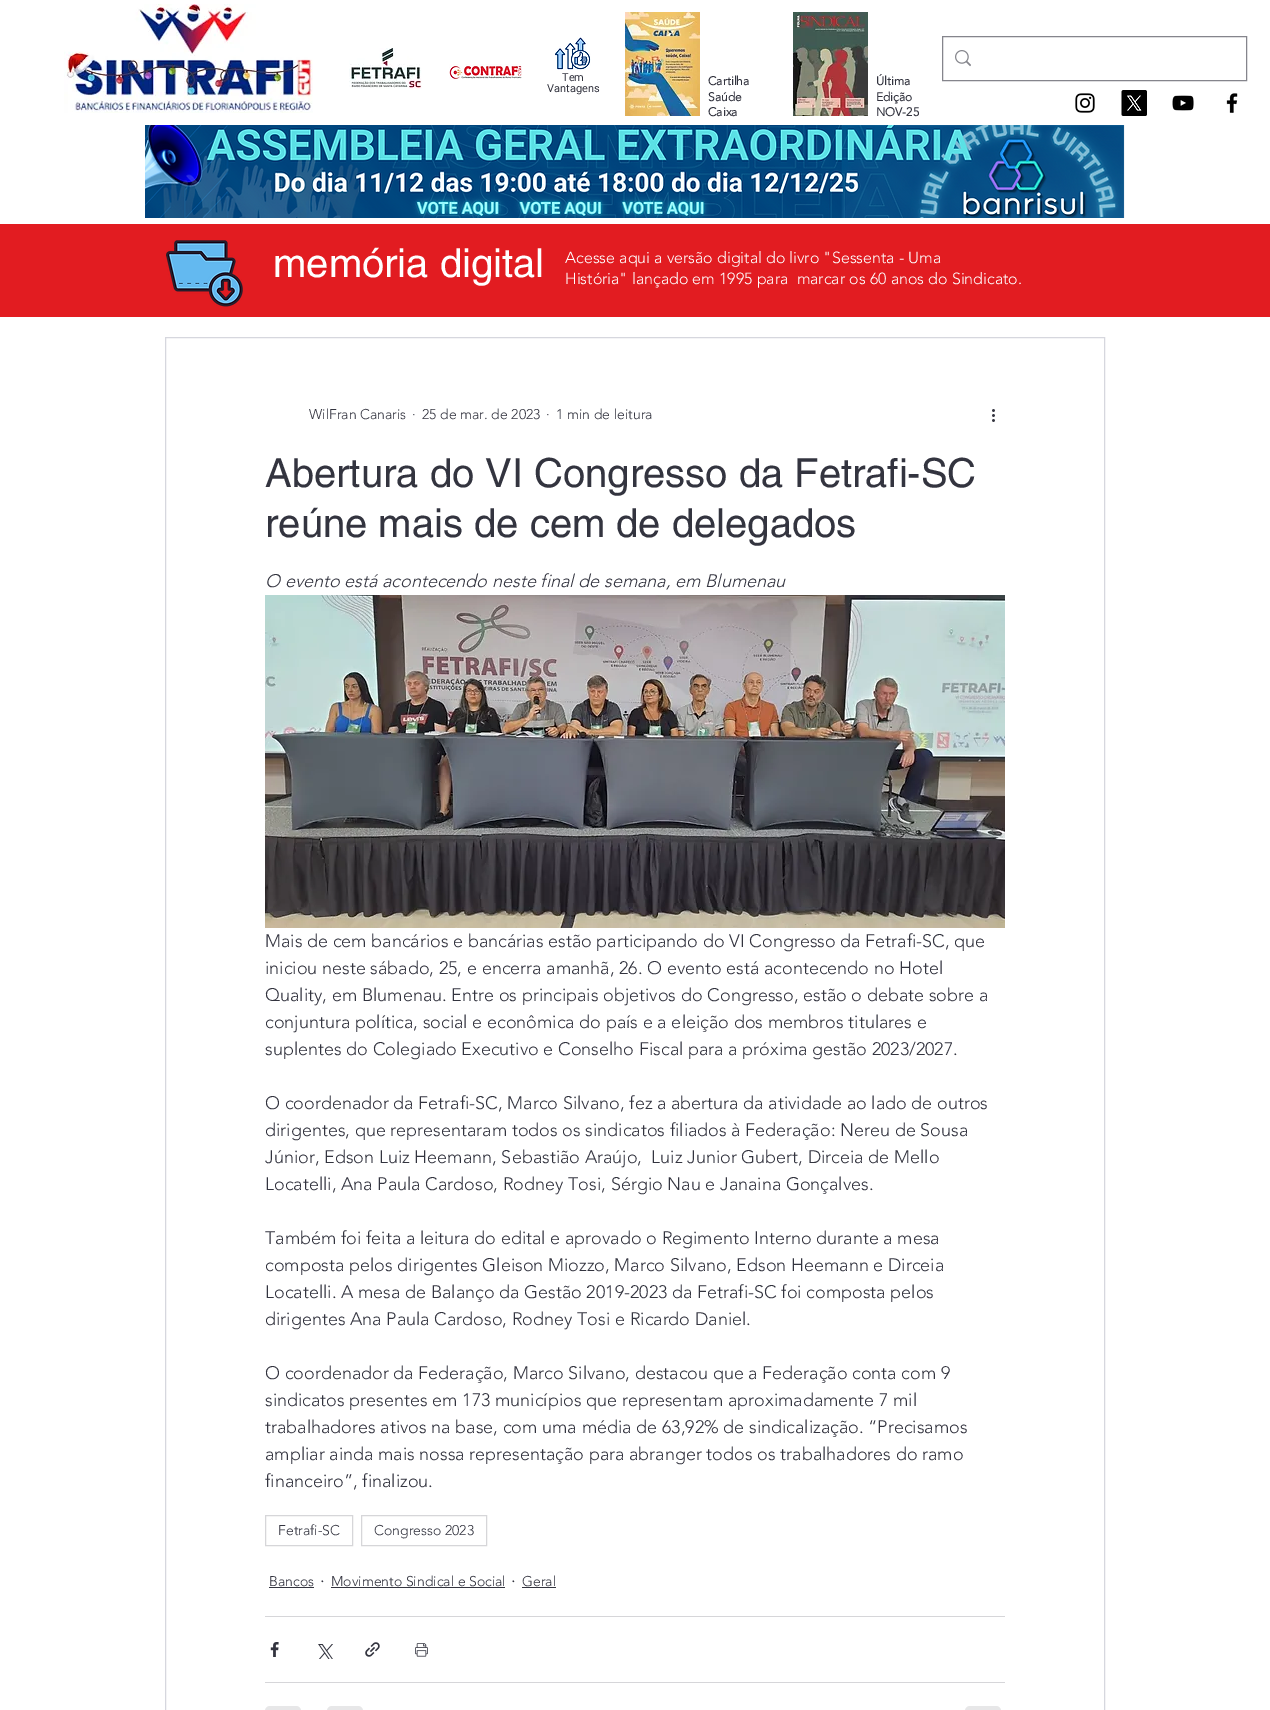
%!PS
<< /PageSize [1270 1710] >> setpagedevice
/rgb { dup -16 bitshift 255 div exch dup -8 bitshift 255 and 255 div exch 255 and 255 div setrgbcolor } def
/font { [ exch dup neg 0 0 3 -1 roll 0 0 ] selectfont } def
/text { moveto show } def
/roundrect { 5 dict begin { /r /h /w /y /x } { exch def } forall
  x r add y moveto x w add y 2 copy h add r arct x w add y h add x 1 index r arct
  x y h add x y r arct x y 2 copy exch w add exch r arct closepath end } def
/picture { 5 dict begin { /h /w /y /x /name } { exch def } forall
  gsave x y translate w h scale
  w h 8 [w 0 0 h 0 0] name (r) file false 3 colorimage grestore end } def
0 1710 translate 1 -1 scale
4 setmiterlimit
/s1 { /Roboto-Regular 11 font 16#33343F rgb } def
/s2 { /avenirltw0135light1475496-Bold 12 font 16#33343F rgb } def
/s3 { /helvetica-Regular 40 font 16#FFFFFF rgb } def
/s4 { /avenirltw0135light1475496-Light 16 font 16#FFFFFF rgb } def
/s5 { /avenirltw0135light1475496-Light 14 font 16#33343F rgb } def
/s6 { /helvetica-Regular 40 font 16#33343F rgb } def
/s7 { /avenirltw0135light1475496-LightItalic 18 font 16#33343F rgb } def
/s8 { /avenirltw0135light1475496-Light 18 font 16#33343F rgb } def
16#FFFFFF rgb
0 0 1270 1710 rectfill
(pic1.raw) 64 4 249 109 picture
(pic2.raw) 349 48 73 41 picture
(pic3.raw) 449 64 73 15 picture
16#85858C rgb
942.5 36.5 304 44 rectstroke
(pic4.raw) 955 50 16 17 picture
(pic5.raw) 555 37 36 33 picture
s1
(Tem) 562 81 text
(Vantagens) 547 92 text
(pic6.raw) 625 12 75 104 picture
s2
(Cartilha) 708 85 text
(Saúde) 708 101 text
(Caixa) 708 116 text
(pic7.raw) 793 12 75 104 picture
(Última) 876 85 text
(Edição) 876 101 text
(NOV-25) 876 116 text
(pic8.raw) 1075 93 20 20 picture
(pic9.raw) 1121 90 26 26 picture
(pic10.raw) 1172 95 22 16 picture
(pic11.raw) 1226 93 12 20 picture
(pic12.raw) 145 125 980 93 picture
16#E21C21 rgb
0 224 1270 93 rectfill
(pic13.raw) 166 240 77 67 picture
s3
(memória digital) 273 277 text
s4
(Acesse aqui a versão digital do livro "Sessenta - Uma) 565 263 text
(História" lançado em 1995 para  marcar os 60 anos do Sindicato.) 565 284 text
16#D6D7DE rgb
165.5 337.5 939 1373 rectstroke
s5
(WilFran Canaris) 309 419 text
(·) 412 419 text
(25 de mar. de 2023) 422 419 text
(·) 546 419 text
(1 min de leitura) 556 419 text
(pic14.raw) 992 409 3 13 picture
s6
(Abertura do VI Congresso da Fetrafi-SC) 265 487 text
(reúne mais de cem de delegados) 265 537 text
s7
(O evento está acontecendo neste final de semana, em Blumenau) 265 587 text
(pic15.raw) 265 595 740 333 picture
s8
(Mais de cem bancários e bancárias estão participando do VI Congresso da Fetrafi-SC, que) 265 947 text
(iniciou neste sábado, 25, e encerra amanhã, 26. O evento está acontecendo no Hotel) 265 974 text
(Quality, em Blumenau. Entre os principais objetivos do Congresso, estão o debate sobre a) 265 1001 text
(conjuntura política, social e econômica do país e a eleição dos membros titulares e) 265 1028 text
(suplentes do Colegiado Executivo e Conselho Fiscal para a próxima gestão 2023/2027.) 265 1055 text
(O coordenador da Fetrafi-SC, Marco Silvano, fez a abertura da atividade ao lado de outros) 265 1109 text
(dirigentes, que representaram todos os sindicatos filiados à Federação: Nereu de Sousa) 265 1136 text
(Júnior, Edson Luiz Heemann, Sebastião Araújo,  Luiz Junior Gubert, Dirceia de Mello) 265 1163 text
(Locatelli, Ana Paula Cardoso, Rodney Tosi, Sérgio Nau e Janaina Gonçalves.) 265 1190 text
(Também foi feita a leitura do edital e aprovado o Regimento Interno durante a mesa) 265 1244 text
(composta pelos dirigentes Gleison Miozzo, Marco Silvano, Edson Heemann e Dirceia) 265 1271 text
(Locatelli. A mesa de Balanço da Gestão 2019-2023 da Fetrafi-SC foi composta pelos) 265 1298 text
(dirigentes Ana Paula Cardoso, Rodney Tosi e Ricardo Daniel.) 265 1325 text
(O coordenador da Federação, Marco Silvano, destacou que a Federação conta com 9) 265 1379 text
(sindicatos presentes em 173 municípios que representam aproximadamente 7 mil) 265 1406 text
(trabalhadores ativos na base, com uma média de 63,92% de sindicalização. “Precisamos) 265 1433 text
(ampliar ainda mais nossa representação para abranger todos os trabalhadores do ramo) 265 1460 text
(financeiro”, finalizou.) 265 1487 text
16#D6D6D9 rgb
265.5 1515.5 87 30 rectstroke
s5
(Fetrafi-SC) 278 1535 text
16#D6D6D9 rgb
361.5 1515.5 125 30 rectstroke
s5
(Congresso 2023) 374 1535 text
(Bancos) 269 1586 text
269 1587 45 1 rectfill
s8
(·) 320 1587 text
s5
(Movimento Sindical e Social) 331 1586 text
331 1587 174 1 rectfill
s8
(·) 511 1587 text
s5
(Geral) 522 1586 text
522 1587 34 1 rectfill
16#D6D6D9 rgb
265 1616 740 1 rectfill
(pic16.raw) 270 1642 9 15 picture
(pic17.raw) 318 1644 15 15 picture
(pic18.raw) 365 1642 15 15 picture
(pic19.raw) 415 1643 13 14 picture
265 1682 740 1 rectfill
16#E7E7E8 rgb
265 1706 36 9 5 roundrect fill
327 1706 36 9 5 roundrect fill
965 1706 36 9 5 roundrect fill
showpage
